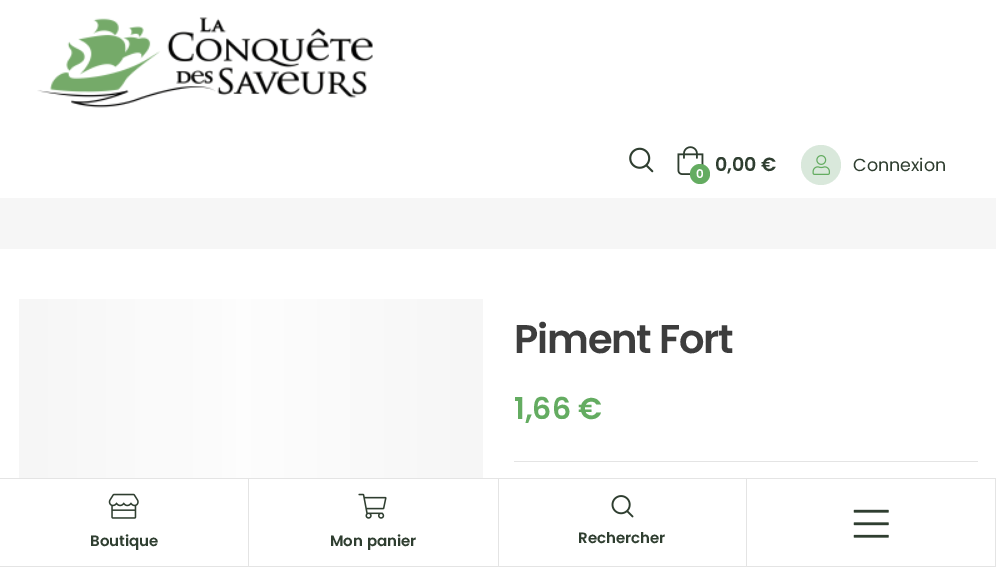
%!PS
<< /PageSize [996 567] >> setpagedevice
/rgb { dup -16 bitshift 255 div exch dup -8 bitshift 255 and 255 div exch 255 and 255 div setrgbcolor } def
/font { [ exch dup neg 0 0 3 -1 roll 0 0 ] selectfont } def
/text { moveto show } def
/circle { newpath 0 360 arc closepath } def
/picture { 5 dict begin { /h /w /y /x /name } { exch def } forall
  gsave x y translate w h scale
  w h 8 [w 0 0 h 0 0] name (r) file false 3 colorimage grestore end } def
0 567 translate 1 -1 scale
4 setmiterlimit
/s1 { /Poppins-SemiBold 19 font 16#2F3E30 rgb } def
/s2 { /Poppins-SemiBold 12 font 16#FFFFFF rgb } def
/s3 { /Poppins-Regular 17.5 font 16#2F3E30 rgb } def
/s4 { /Poppins-SemiBold 30 font 16#64AC61 rgb } def
/s5 { /Poppins-SemiBold 15 font 16#2F3E30 rgb } def
16#FFFFFF rgb
0 0 996 567 rectfill
(pic1.raw) 37 17 336 91 picture
(pic2.raw) 629 147 25 26 picture
(pic3.raw) 677 146 27 29 picture
s1
(0,00 €) 715 171 text
16#64AC61 rgb
700 174 10 circle fill
s2
(0) 696 178 text
16#D9E8DB rgb
821 165 20 circle fill
(pic4.raw) 812 155 18 20 picture
s3
(Connexion) 853 171 text
16#F6F6F6 rgb
0 198 996 51 rectfill
gsave 19 299 moveto 483 299 lineto 483 478 lineto 19 478 lineto closepath clip newpath
<< /ShadingType 2 /ColorSpace /DeviceRGB /Coords [-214 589 715 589] /Extend [true true] /Function << /FunctionType 3 /Domain [0 1] /Functions [<< /FunctionType 2 /Domain [0 1] /C0 [0.961 0.961 0.961] /C1 [0.961 0.961 0.961] /N 1 >> << /FunctionType 2 /Domain [0 1] /C0 [0.961 0.961 0.961] /C1 [0.992 0.992 0.992] /N 1 >> << /FunctionType 2 /Domain [0 1] /C0 [0.992 0.992 0.992] /C1 [0.961 0.961 0.961] /N 1 >> << /FunctionType 2 /Domain [0 1] /C0 [0.961 0.961 0.961] /C1 [0.961 0.961 0.961] /N 1 >>] /Bounds [0.2 0.5 0.8] /Encode [0 1 0 1 0 1 0 1] >> >> shfill grestore
/Poppins-SemiBold 40 font
16#3D3D3D rgb
514 353 moveto -1.25 0 (Piment Fort) ashow
16#E4E4E4 rgb
514 461 464 1 rectfill
s4
(1,66 €) 514 419 text
16#E4E4E4 rgb
0 478 996 1 rectfill
0 566 996 1 rectfill
248 479 1 87 rectfill
(pic5.raw) 108 493 31 26 picture
s5
(Boutique) 90 546 text
16#E4E4E4 rgb
498 479 1 87 rectfill
(pic6.raw) 358 493 29 26 picture
s5
(Mon panier) 330 546 text
16#E4E4E4 rgb
746 479 1 87 rectfill
(pic7.raw) 611 495 23 23 picture
s5
(Rechercher) 578 543 text
16#E4E4E4 rgb
995 479 1 87 rectfill
(pic8.raw) 853 509 36 29 picture
showpage
